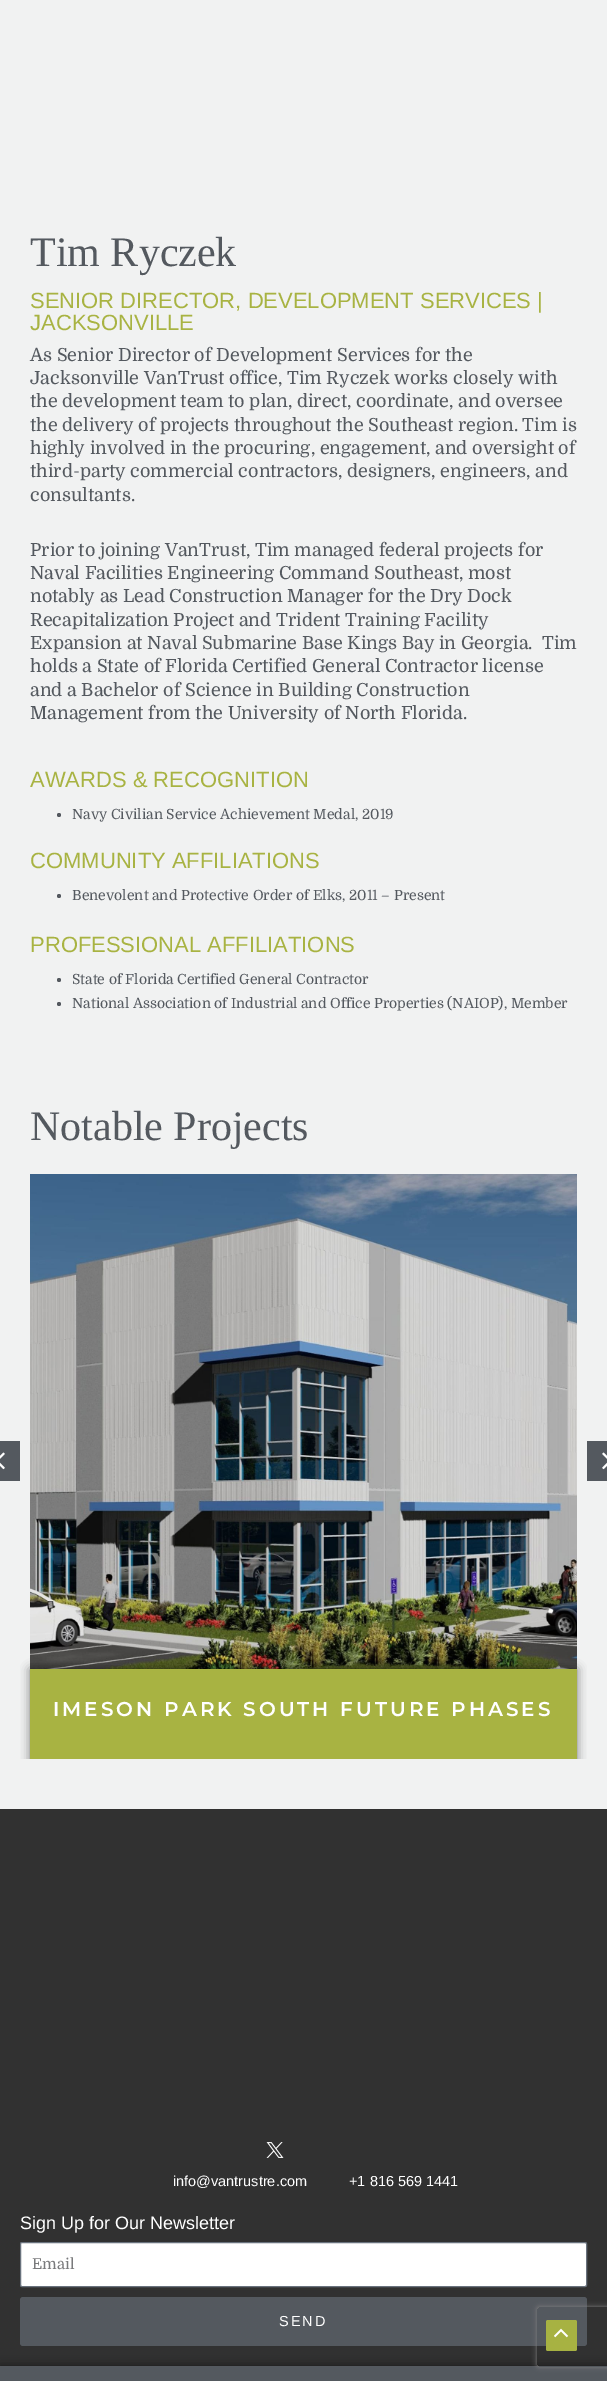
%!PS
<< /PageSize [607 2381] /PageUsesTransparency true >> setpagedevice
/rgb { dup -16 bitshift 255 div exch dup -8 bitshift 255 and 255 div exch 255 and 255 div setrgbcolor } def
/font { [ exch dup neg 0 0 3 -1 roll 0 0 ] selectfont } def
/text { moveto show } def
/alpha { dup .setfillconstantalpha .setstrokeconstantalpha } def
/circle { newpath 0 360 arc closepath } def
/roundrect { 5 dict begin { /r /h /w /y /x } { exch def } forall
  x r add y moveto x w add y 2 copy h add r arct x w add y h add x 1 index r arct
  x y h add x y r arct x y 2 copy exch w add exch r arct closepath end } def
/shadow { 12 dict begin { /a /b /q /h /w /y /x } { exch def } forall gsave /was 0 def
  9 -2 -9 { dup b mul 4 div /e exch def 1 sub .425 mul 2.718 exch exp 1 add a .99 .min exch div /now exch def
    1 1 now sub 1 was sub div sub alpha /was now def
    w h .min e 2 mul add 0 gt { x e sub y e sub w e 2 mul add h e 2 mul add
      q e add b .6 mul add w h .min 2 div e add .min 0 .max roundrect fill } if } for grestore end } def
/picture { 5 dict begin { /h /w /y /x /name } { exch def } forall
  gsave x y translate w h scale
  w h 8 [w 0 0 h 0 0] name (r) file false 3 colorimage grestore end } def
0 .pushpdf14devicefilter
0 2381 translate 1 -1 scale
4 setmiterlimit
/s1 { /LiberationSerif-Regular 42 font 16#54595F rgb } def
/s2 { /LiberationSans-Regular 22 font 16#A8B342 rgb } def
/s3 { /Domine-Regular 18 font 16#54595F rgb } def
/s4 { /Domine-Regular 14 font 16#54595F rgb } def
/s5 { /LiberationSans-Regular 14.5 font 16#FFFFFF rgb } def
/s6 { /LiberationSans-Regular 18 font 16#FFFFFF rgb } def
/s7 { /Domine-Regular 15 font 16#797A7C rgb } def
16#F1F2F2 rgb
0 0 607 2381 rectfill
s1
(Tim Ryczek) 30 266 text
s2
(SENIOR DIRECTOR, DEVELOPMENT SERVICES |) 30 308 text
(JACKSONVILLE) 30 330 text
s3
(As Senior Director of Development Services for the) 30 361 text
(Jacksonville VanTrust office, Tim Ryczek works closely with) 30 384 text
(the development team to plan, direct, coordinate, and oversee) 30 407 text
(the delivery of projects throughout the Southeast region. Tim is) 30 431 text
(highly involved in the procuring, engagement, and oversight of) 30 454 text
(third-party commercial contractors, designers, engineers, and) 30 477 text
(consultants.) 30 501 text
(Prior to joining VanTrust, Tim managed federal projects for) 30 556 text
(Naval Facilities Engineering Command Southeast, most) 30 579 text
(notably as Lead Construction Manager for the Dry Dock) 30 602 text
(Recapitalization Project and Trident Training Facility) 30 626 text
(Expansion at Naval Submarine Base Kings Bay in Georgia.) 30 649 text
(Tim) 542 649 text
(holds a State of Florida Certified General Contractor license) 30 672 text
(and a Bachelor of Science in Building Construction) 30 696 text
(Management from the University of North Florida.) 30 719 text
s2
(AWARDS & RECOGNITION) 30 787 text
16#54595F rgb
59 815 2 circle fill
s4
(Navy Civilian Service Achievement Medal, 2019) 72 819 text
s2
(COMMUNITY AFFILIATIONS) 30 868 text
16#54595F rgb
59 896 2 circle fill
s4
(Benevolent and Protective Order of Elks, 2011 – Present) 72 900 text
s2
(PROFESSIONAL AFFILIATIONS) 30 952 text
16#54595F rgb
59 980 2 circle fill
s4
(State of Florida Certified General Contractor) 72 984 text
59 1004 2 circle fill
(National Association of Industrial and Office Properties \(NAIOP\), Member) 72 1008 text
s1
(Notable Projects) 30 1140 text
0 1441 20 40 rectfill
(pic1.raw) 0 1452 5 18 picture
587 1441 20 40 rectfill
(pic2.raw) 602 1452 5 18 picture
(pic3.raw) 30 1174 547 495 picture
gsave
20 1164 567 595 rectclip
16#000000 rgb
30 1669 547 575 0 5 0.5 shadow
grestore
16#A8B342 rgb
30 1669 547 90 rectfill
/Montserrat-SemiBold 20 font
16#FFFFFF rgb
53 1716 moveto 3 0 (IMESON PARK SOUTH FUTURE PHASES) ashow
16#313131 rgb
0 1809 607 557 rectfill
(pic4.raw) 266 2142 18 16 picture
s5
(info@vantrustre.com) 173 2186 text
(+1 816 569 1441) 349 2186 text
s6
(Sign Up for Our Newsletter) 20 2229 text
20.5 2242.5 566 44 1.5 roundrect gsave fill grestore
16#69727D rgb
stroke
s7
(Email) 32 2269 text
16#54595F rgb
20 2297 567 49 3 roundrect fill
/LiberationSans-Regular 14.5 font
16#FFFFFF rgb
279 2326 moveto 2 0 (SEND) ashow
16#000000 rgb
0 2366 607 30 0 5 0.5 shadow
16#54595F rgb
0 2366 607 15 rectfill
gsave
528 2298 moveto 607 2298 lineto 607 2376 lineto 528 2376 lineto closepath 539 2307 moveto 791 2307 lineto 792 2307 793 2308 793 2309 curveto 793 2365 lineto 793 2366 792 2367 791 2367 curveto 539 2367 lineto 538 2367 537 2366 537 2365 curveto 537 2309 lineto 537 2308 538 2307 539 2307 curveto closepath eoclip newpath
16#808080 rgb
537 2307 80 60 2 2.5 1 shadow
grestore
16#A7B242 rgb
546 2320 31 31 2 roundrect fill
(pic5.raw) 554 2328 15 10 picture
.poppdf14devicefilter showpage
